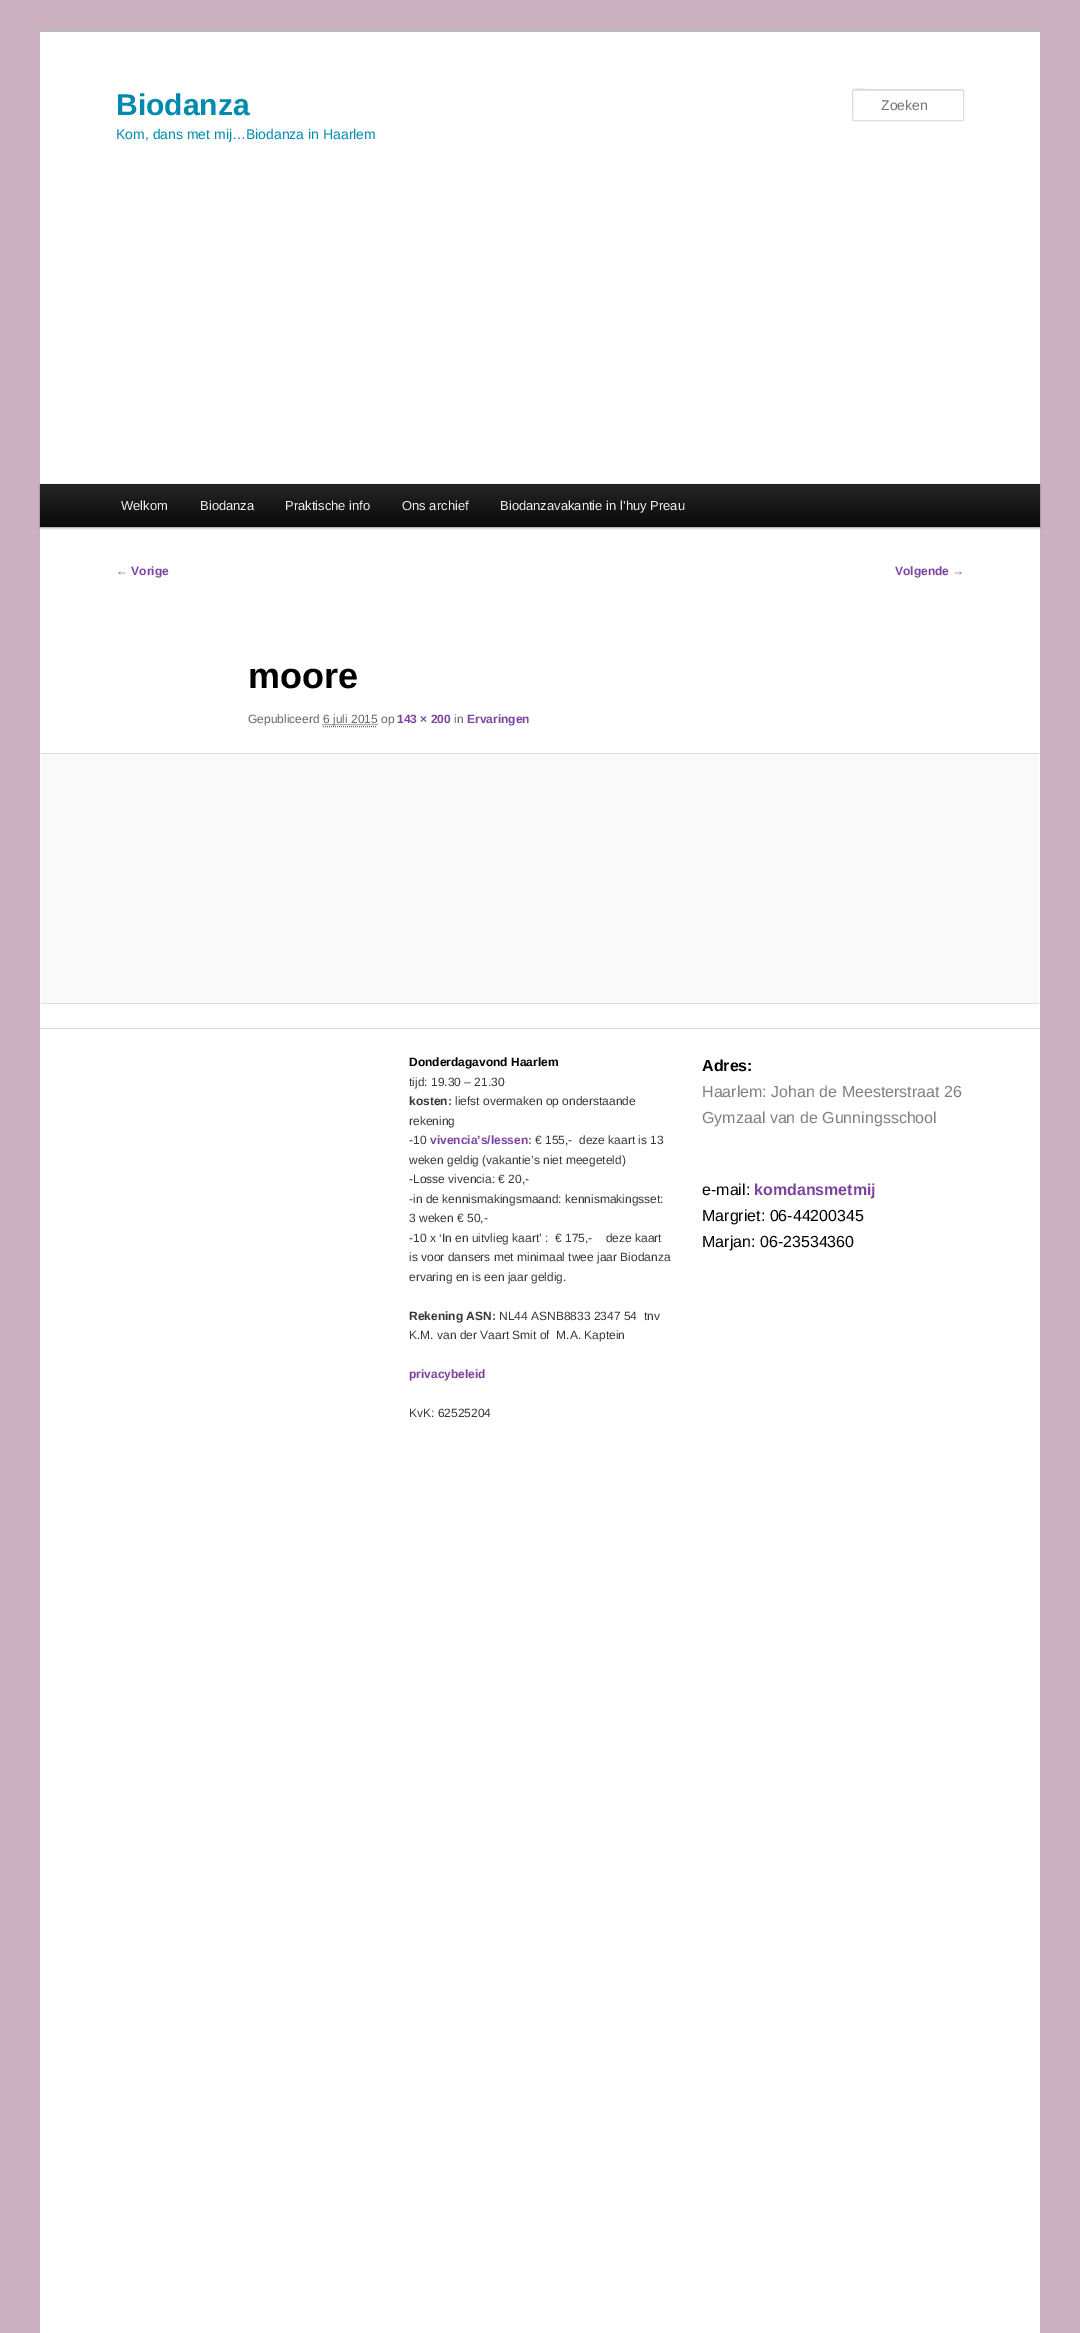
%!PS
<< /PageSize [1080 2333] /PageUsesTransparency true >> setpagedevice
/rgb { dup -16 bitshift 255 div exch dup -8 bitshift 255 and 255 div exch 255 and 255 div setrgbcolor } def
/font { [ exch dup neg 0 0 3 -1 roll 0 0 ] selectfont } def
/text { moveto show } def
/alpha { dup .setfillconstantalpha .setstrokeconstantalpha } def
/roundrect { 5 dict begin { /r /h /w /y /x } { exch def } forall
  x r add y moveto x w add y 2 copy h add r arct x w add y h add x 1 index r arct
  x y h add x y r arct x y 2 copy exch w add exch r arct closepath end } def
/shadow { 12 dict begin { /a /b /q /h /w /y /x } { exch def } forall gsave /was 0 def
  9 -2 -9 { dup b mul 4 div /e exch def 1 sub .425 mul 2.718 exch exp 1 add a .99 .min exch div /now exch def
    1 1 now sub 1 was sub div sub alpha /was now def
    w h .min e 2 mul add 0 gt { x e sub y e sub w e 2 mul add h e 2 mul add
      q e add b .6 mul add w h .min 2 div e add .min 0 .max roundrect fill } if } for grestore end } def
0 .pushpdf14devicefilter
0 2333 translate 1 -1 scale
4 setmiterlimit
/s1 { /LiberationSans-Bold 30 font 16#008AAD rgb } def
/s2 { /LiberationSans-Regular 14 font 16#008AAD rgb } def
/s3 { /LiberationSans-Regular 14 font 16#757575 rgb } def
/s4 { /LiberationSans-Regular 13 font 16#EEEEEE rgb } def
/s5 { /LiberationSans-Bold 12 font 16#7D439E rgb } def
/s6 { /LiberationSans-Bold 36 font 16#000000 rgb } def
/s7 { /LiberationSans-Regular 12 font 16#666666 rgb } def
/s8 { /LiberationSans-Bold 12 font 16#000000 rgb } def
/s9 { /LiberationSans-Regular 12 font 16#373737 rgb } def
/s10 { /LiberationSans-Bold 12 font 16#373737 rgb } def
/s11 { /LiberationSans-Bold 16 font 16#000000 rgb } def
/s12 { /LiberationSans-Regular 16 font 16#808080 rgb } def
/s13 { /LiberationSans-Regular 16 font 16#000000 rgb } def
/s14 { /LiberationSans-Bold 16 font 16#7D439E rgb } def
16#CCB1C0 rgb
0 0 1080 2333 rectfill
16#FFFFFF rgb
40 32 1000 2301 rectfill
16#BBBBBB rgb
40 30 1000 2 rectfill
s1
(Biodanza) 116 115 text
s2
(Kom, dans met mij…Biodanza in Haarlem) 116 139 text
16#E6E6E6 rgb
854 91 moveto 963 91 lineto 963 92 lineto 962 90 lineto 872 90 lineto 868 90 853 85 853 92 curveto 853 91 853 91 854 91 curveto closepath fill
16#DDDDDD rgb
852.5 89.5 111 31 1.5 roundrect stroke
s3
(Zoeken) 881 110 text
16#000000 rgb
40 485 1000 43 0 1 0.4 shadow
gsave 40 484 moveto 1040 484 lineto 1040 527 lineto 40 527 lineto closepath clip newpath
<< /ShadingType 2 /ColorSpace /DeviceRGB /Coords [540 484 540 527] /Extend [true true] /Function << /FunctionType 2 /Domain [0 1] /C0 [0.145 0.145 0.145] /C1 [0.039 0.039 0.039] /N 1 >> >> shfill grestore
s4
(Welkom) 121 510 text
(Biodanza) 200 510 text
(Praktische info) 285 510 text
(Ons archief) 402 510 text
(Biodanzavakantie in l’huy Preau) 500 510 text
s5
(← Vorige) 116 575 text
(Volgende →) 895 575 text
s6
(moore) 248 688 text
s7
(Gepubliceerd) 248 723 text
[1 1] 0 setdash
323 726.5 moveto 377 726.5 lineto 322.5 724.5 moveto 377.5 724.5 lineto stroke
(6 juli 2015 op) 323 723 text
s5
(143 × 200) 397 723 text
s7
(in) 454 723 text
s5
(Ervaringen) 467 723 text
16#F9F9F9 rgb
41 754 998 249 rectfill
16#DDDDDD rgb
41 753 998 1 rectfill
41 1003 998 1 rectfill
40 1028 1000 1 rectfill
s8
(Donderdagavond Haarlem) 409 1066 text
s9
(tijd: 19.30 – 21.30) 409 1086 text
s10
(kosten:) 409 1105 text
s9
(liefst overmaken op onderstaande) 455 1105 text
(rekening) 409 1125 text
(-10) 409 1144 text
s5
(vivencia’s/lessen:) 430 1144 text
s9
(€ 155,-  deze kaart is 13) 535 1144 text
(weken geldig \(vakantie’s niet meegeteld\)) 409 1164 text
(-Losse vivencia: € 20,-) 409 1183 text
(-in de kennismakingsmaand: kennismakingsset:) 409 1203 text
(3 weken € 50,-) 409 1222 text
(-10 x ‘In en uitvlieg kaart’ :  € 175,-    deze kaart) 409 1242 text
(is voor dansers met minimaal twee jaar Biodanza) 409 1261 text
(ervaring en is een jaar geldig.) 409 1281 text
s10
(Rekening ASN:) 409 1320 text
s9
(NL44 ASNB8833 2347 54  tnv) 499 1320 text
(K.M. van der Vaart Smit of  M.A. Kaptein) 409 1339 text
s5
(privacybeleid) 409 1378 text
s9
(KvK: 62525204) 409 1417 text
s11
(Adres:) 702 1071 text
s12
(Haarlem: Johan de Meesterstraat 26) 702 1097 text
(Gymzaal van de Gunningsschool) 702 1123 text
s13
(e-mail:) 702 1195 text
s14
(komdansmetmij) 754 1195 text
s13
(Margriet: 06-44200345) 702 1221 text
(Marjan: 06-23534360) 702 1247 text
.poppdf14devicefilter showpage
